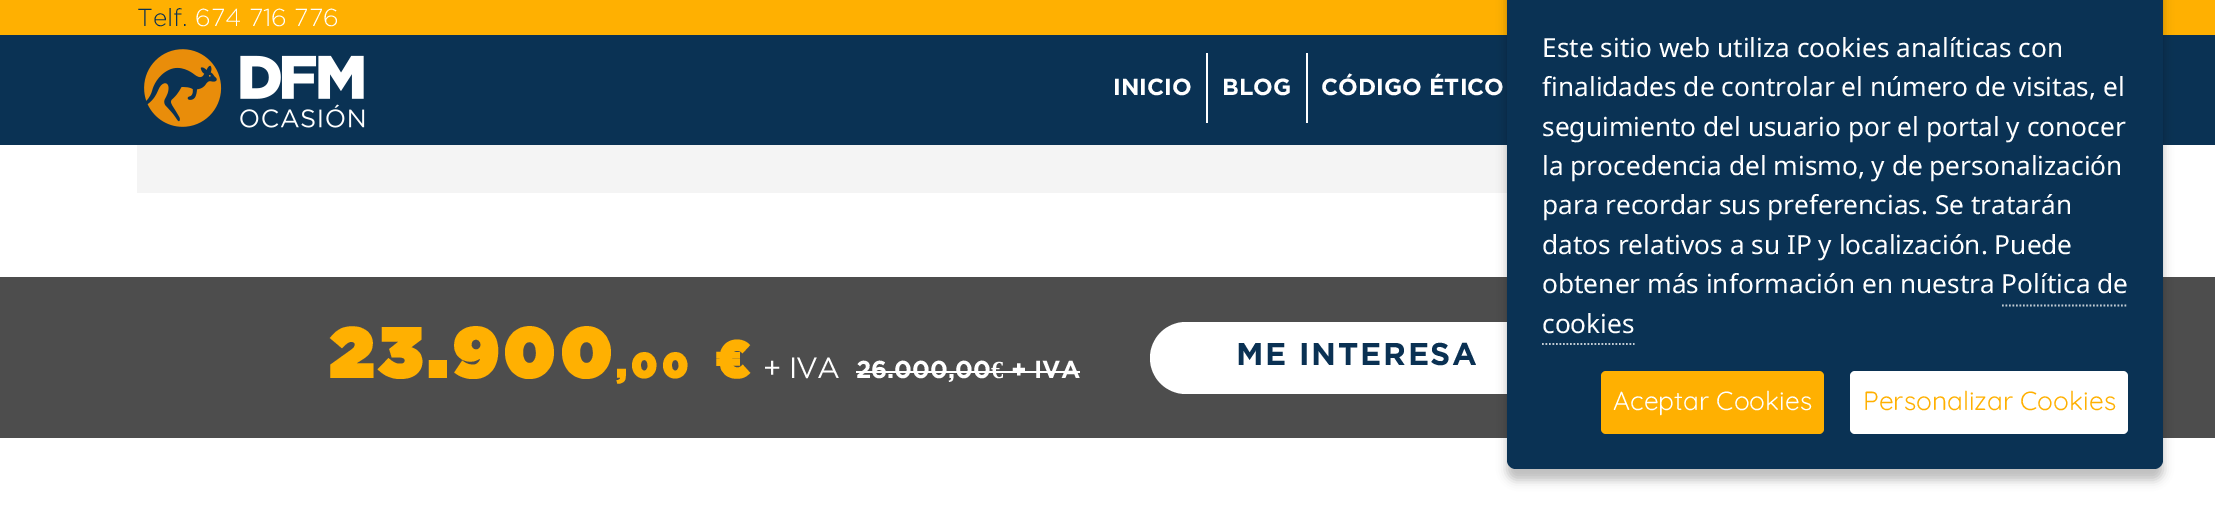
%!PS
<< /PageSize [2215 520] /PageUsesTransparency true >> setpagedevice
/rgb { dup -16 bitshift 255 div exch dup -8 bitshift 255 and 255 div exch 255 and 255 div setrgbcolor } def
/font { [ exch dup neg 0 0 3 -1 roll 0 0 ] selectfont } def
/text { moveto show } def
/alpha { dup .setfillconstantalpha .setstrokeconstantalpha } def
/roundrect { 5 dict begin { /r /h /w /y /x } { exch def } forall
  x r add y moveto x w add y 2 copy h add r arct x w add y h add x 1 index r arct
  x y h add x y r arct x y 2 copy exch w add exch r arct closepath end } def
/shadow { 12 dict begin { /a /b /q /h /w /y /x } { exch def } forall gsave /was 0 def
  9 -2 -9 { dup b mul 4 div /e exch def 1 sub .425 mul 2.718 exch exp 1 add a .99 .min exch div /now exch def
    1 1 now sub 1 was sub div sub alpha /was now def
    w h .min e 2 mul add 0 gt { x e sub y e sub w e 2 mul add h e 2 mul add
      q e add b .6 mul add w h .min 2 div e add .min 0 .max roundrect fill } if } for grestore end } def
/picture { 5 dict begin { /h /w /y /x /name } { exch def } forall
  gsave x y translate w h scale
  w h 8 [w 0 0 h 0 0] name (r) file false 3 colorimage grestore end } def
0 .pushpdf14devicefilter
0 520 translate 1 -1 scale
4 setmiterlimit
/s1 { /Gotham-Light 24.5 font 16#0A3153 rgb } def
/s2 { /Gotham-Light 24.5 font 16#FFFFFF rgb } def
/s3 { /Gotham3-Bold 23.25 font 16#FFFFFF rgb } def
/s4 { /NotoSans-Regular 26.25 font 16#FFFFFF rgb } def
/s5 { /Quicksand-Regular 26.25 font 16#FFFFFF rgb } def
/s6 { /Quicksand-Regular 26.25 font 16#FFB001 rgb } def
/s7 { /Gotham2-Bold 28 font 16#FFFFFF rgb } def
/s8 { /Gotham3-Bold 24.5 font 16#FFFFFF rgb } def
/s9 { /LiberationSerif-Bold 24.5 font 16#FFFFFF rgb } def
16#FFFFFF rgb
0 0 2215 520 rectfill
16#0A3254 rgb
0 35 2215 110 rectfill
16#FFB001 rgb
0 0 2215 35 rectfill
s1
(Telf.) 137 26 text
s2
(674 716 776) 195 26 text
(pic1.raw) 144 49 221 79 picture
1206 53 2 70 rectfill
s3
(INICIO) 1113 95 text
1306 53 2 70 rectfill
(BLOG) 1222 95 text
(CÓDIGO ÉTICO) 1321 95 text
16#F4F4F4 rgb
137 145 1370 48 rectfill
16#4D4D4D rgb
0 277 2215 161 rectfill
16#FFFFFF rgb
1150 322 415 72 36 roundrect fill
16#000000 rgb
1507 -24 656 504 9 5 0.25 shadow
16#0A3254 rgb
1507 -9 656 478 9 roundrect fill
s4
(Este sitio web utiliza cookies analíticas con) 1542 57 text
(finalidades de controlar el número de visitas, el) 1542 96 text
(seguimiento del usuario por el portal y conocer) 1542 136 text
(la procedencia del mismo, y de personalización) 1542 175 text
(para recordar sus preferencias. Se tratarán) 1542 214 text
(datos relativos a su IP y localización. Puede) 1542 254 text
(obtener más información en nuestra Política de) 1542 293 text
(cookies) 1542 333 text
16#C2CCD4 rgb
1.8 setlinewidth
[1.75 1.75] 0 setdash
2002 305.5 moveto 2128 305.5 lineto stroke
1542 344 moveto 1634.5 344 lineto stroke
16#FFB001 rgb
1601 371 223 63 5 roundrect fill
s5
(Aceptar Cookies) 1613 410 text
1850 371 278 63 5 roundrect fill
s6
(Personalizar Cookies) 1863 410 text
/Gotham-Bold 70 font
329 378 moveto 5.25 0 (23.900) ashow
/Gotham-Bold 35 font
616 378 moveto 5.25 0 (,00) ashow
/Gotham-Bold 52 font
715 378 moveto 5.25 0 (€) ashow
s7
(+ IVA) 763 378 text
s8
(26.000,00) 856 378 text
856 371 135 2 rectfill
991 371 12 2 rectfill
s9
(€) 991 378 text
1003 371 77 2 rectfill
s8
(+ IVA) 1011 378 text
/Gotham3-Bold 31.5 font
16#0A3153 rgb
1236 365 moveto 1.75 0 (ME INTERESA) ashow
.poppdf14devicefilter showpage
